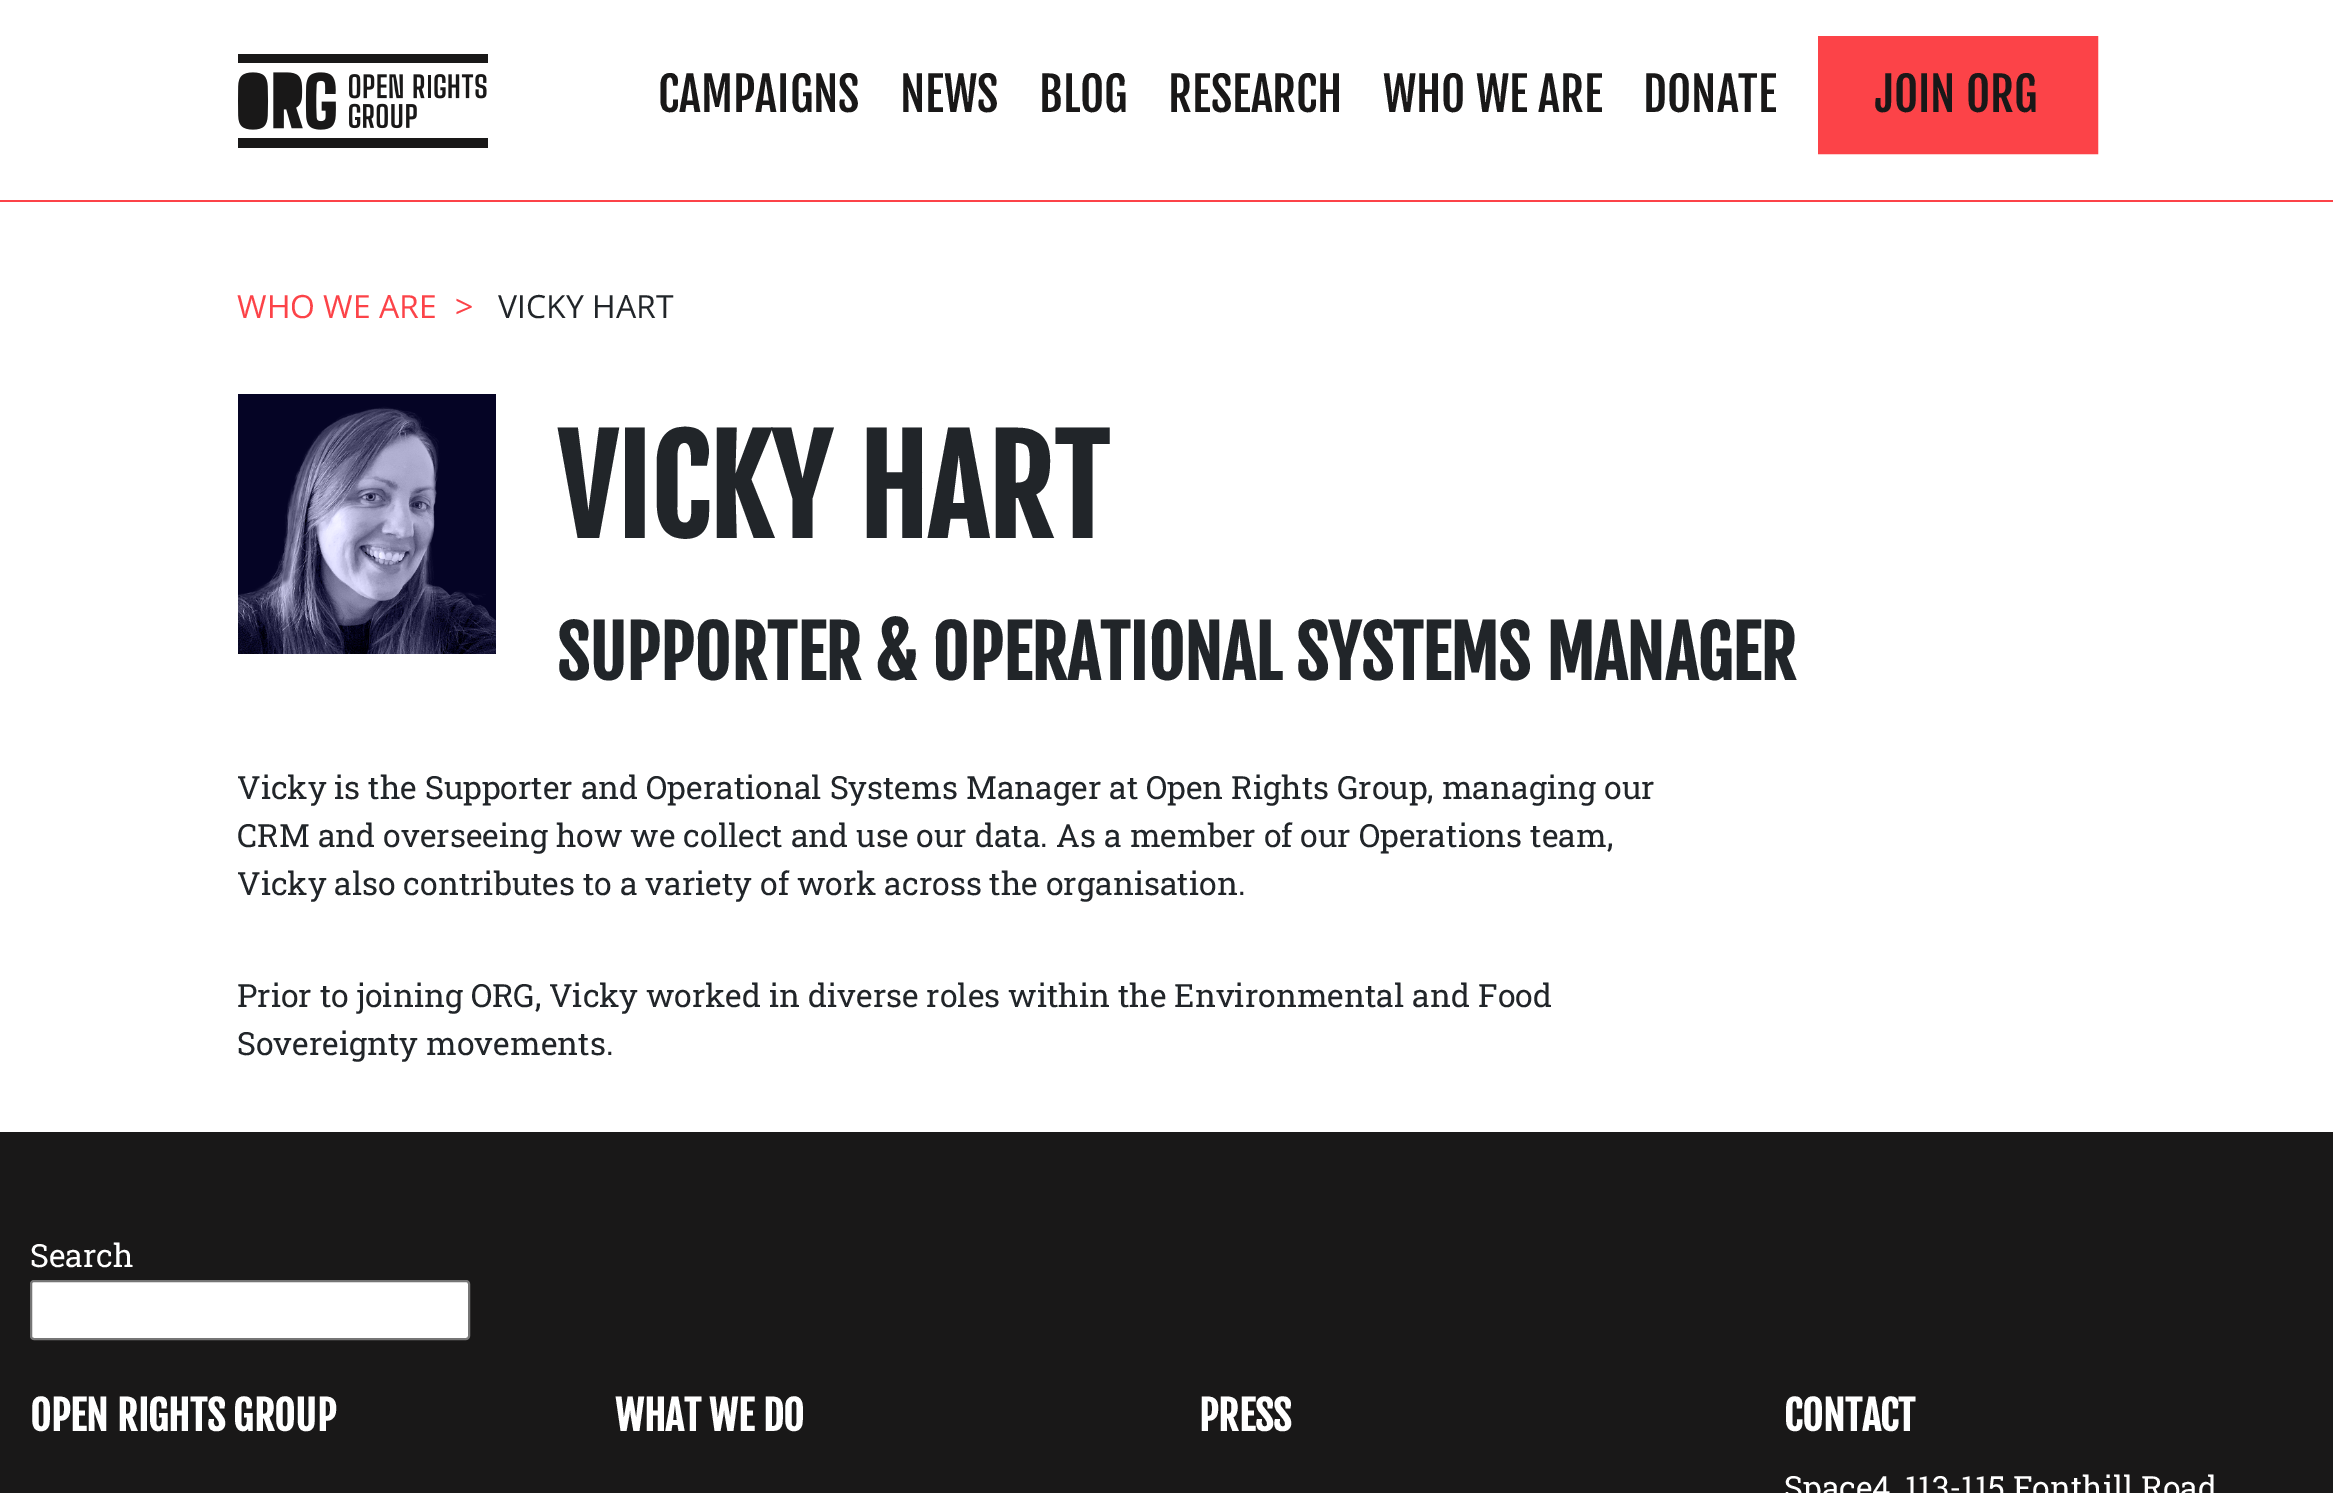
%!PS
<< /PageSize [2333 1493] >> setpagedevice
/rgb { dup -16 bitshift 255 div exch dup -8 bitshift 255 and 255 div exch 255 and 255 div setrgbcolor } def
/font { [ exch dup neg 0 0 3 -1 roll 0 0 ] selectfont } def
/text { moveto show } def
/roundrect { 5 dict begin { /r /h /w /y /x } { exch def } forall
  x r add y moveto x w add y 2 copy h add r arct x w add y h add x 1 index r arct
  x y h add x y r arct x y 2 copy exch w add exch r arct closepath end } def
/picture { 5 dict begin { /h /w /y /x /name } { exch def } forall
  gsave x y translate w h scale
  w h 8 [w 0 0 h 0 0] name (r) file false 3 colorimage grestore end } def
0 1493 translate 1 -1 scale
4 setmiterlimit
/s1 { /FjallaOne-Regular 46.5 font 16#191818 rgb } def
/s2 { /OpenSans-Regular 32 font 16#FC4348 rgb } def
/s3 { /OpenSans-Regular 32 font 16#212529 rgb } def
/s4 { /FjallaOne-Bold 128 font 16#212529 rgb } def
/s5 { /FjallaOne-Bold 70 font 16#212529 rgb } def
/s6 { /RobotoSlab-Regular 32 font 16#212529 rgb } def
/s7 { /RobotoSlab-Regular 32 font 16#FFFFFF rgb } def
/s8 { /FjallaOne-Bold 40 font 16#FFFFFF rgb } def
16#FFFFFF rgb
0 0 2333 1493 rectfill
16#FC4348 rgb
0 200 2333 2 rectfill
(pic1.raw) 238 54 250 94 picture
s1
(CAMPAIGNS) 658 112 text
(NEWS) 900 112 text
(BLOG) 1039 112 text
(RESEARCH) 1168 112 text
(WHO WE ARE) 1383 112 text
(DONATE) 1643 112 text
16#FC4348 rgb
1820 38 moveto 2096 38 lineto 2096 152 lineto 1820 152 lineto closepath gsave fill grestore
4 setlinewidth
stroke
s1
(JOIN ORG) 1875 112 text
s2
(WHO WE ARE) 237 318 text
(>) 455 318 text
s3
(VICKY HART) 498 318 text
(pic2.raw) 238 394 258 260 picture
s4
(VICKY HART) 557 538 text
s5
(SUPPORTER & OPERATIONAL SYSTEMS MANAGER) 557 680 text
s6
(Vicky is the Supporter and Operational Systems Manager at Open Rights Group, managing our) 237 799 text
(CRM and overseeing how we collect and use our data. As a member of our Operations team,) 237 847 text
(Vicky also contributes to a variety of work across the organisation.) 237 895 text
(Prior to joining ORG, Vicky worked in diverse roles within the Environmental and Food) 237 1007 text
(Sovereignty movements.) 237 1055 text
16#191818 rgb
0 1132 2333 361 rectfill
s7
(Search) 30 1267 text
31 1281 438 58 3 roundrect gsave fill grestore
16#767676 rgb
2 setlinewidth
stroke
s8
(OPEN RIGHTS GROUP) 30 1431 text
(WHAT WE DO) 615 1431 text
(PRESS) 1199 1431 text
(CONTACT) 1784 1431 text
s7
(Space4, 113-115 Fonthill Road) 1784 1499 text
showpage
